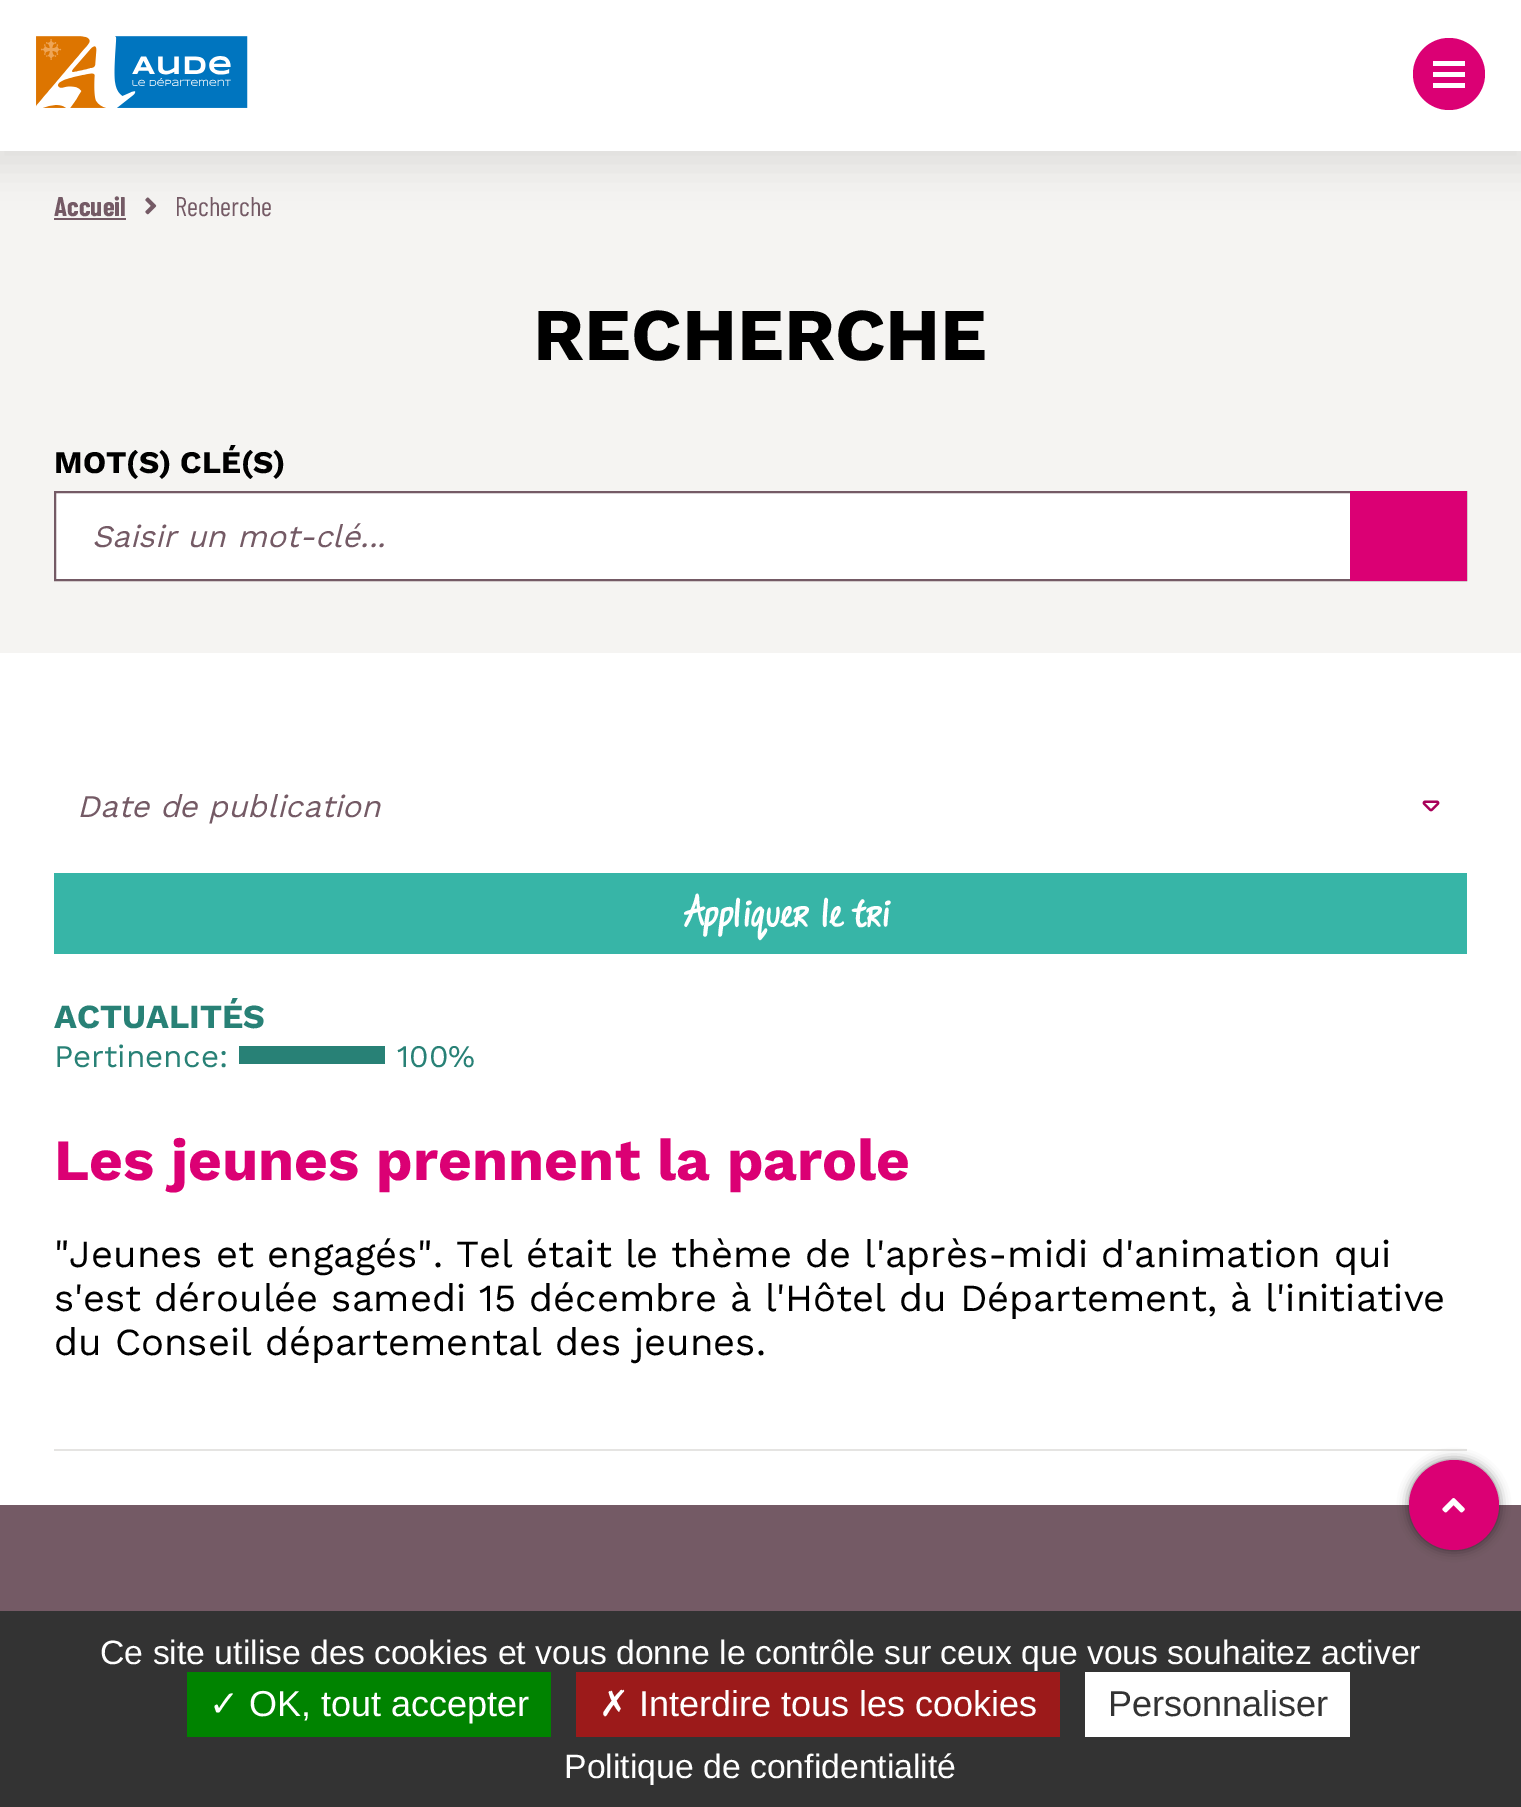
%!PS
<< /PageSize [1521 1807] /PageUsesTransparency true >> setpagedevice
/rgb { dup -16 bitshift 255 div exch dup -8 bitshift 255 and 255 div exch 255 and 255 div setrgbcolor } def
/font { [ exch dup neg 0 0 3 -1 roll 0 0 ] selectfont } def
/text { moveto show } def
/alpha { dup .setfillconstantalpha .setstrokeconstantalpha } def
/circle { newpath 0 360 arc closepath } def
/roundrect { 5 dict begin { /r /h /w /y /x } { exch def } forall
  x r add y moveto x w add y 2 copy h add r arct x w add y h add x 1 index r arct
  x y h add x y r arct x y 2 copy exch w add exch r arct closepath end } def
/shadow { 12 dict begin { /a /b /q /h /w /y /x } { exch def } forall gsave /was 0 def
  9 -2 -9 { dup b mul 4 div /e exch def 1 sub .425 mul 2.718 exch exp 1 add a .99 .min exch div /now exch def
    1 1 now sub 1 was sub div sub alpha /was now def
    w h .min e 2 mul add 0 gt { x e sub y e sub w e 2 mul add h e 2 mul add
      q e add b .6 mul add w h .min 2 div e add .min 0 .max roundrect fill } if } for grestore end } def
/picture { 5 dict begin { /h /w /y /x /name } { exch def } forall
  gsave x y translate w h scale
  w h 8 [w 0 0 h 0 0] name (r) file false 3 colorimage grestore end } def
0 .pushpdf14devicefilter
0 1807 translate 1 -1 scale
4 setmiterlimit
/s1 { /BarlowCondensed-Bold 27 font 16#745A65 rgb } def
/s2 { /BarlowCondensed-Regular 27 font 16#745A65 rgb } def
/s3 { /WorkSans-Bold 74.25 font 16#000000 rgb } def
/s4 { /WorkSans-Bold 31.5 font 16#000000 rgb } def
/s5 { /WorkSans-Italic 31.5 font 16#745A65 rgb } def
/s6 { /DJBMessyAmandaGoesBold-Bold 45 font 16#FFFFFF rgb } def
/s7 { /WorkSans-Bold 33.75 font 16#288176 rgb } def
/s8 { /WorkSans-Regular 31.5 font 16#288176 rgb } def
/s9 { /WorkSans-Bold 58.5 font 16#DB0074 rgb } def
/s10 { /WorkSans-Regular 38.25 font 16#000000 rgb } def
/s11 { /LiberationSans-Regular 33.75 font 16#FFFFFF rgb } def
/s12 { /DejaVuSans-Regular 36 font 16#FFFFFF rgb } def
/s13 { /LiberationSans-Regular 36 font 16#FFFFFF rgb } def
/s14 { /LiberationSans-Regular 36 font 16#333333 rgb } def
16#FFFFFF rgb
0 0 1521 1807 rectfill
16#F5F4F2 rgb
0 151 1521 502 rectfill
16#745A65 rgb
54 218 72 2 rectfill
(pic2.raw) 145 197 12 18 picture
16#000000 rgb
-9 0 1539 169 0 18 0.08 shadow
16#FFFFFF rgb
0 0 1521 151 rectfill
(pic1.raw) 36 36 212 72 picture
16#DB0074 rgb
1449 74 36 circle fill
16#FFFFFF rgb
1433 61 32 5 rectfill
1433 72 32 5 rectfill
1433 83 32 5 rectfill
s1
(Accueil) 54 216 text
s2
(Recherche) 175 216 text
s3
(RECHERCHE) 533 360 text
s4
(MOT\(S\) CLÉ\(S\)) 54 473 text
16#FFFFFF rgb
56 493 1294 86 rectfill
16#745A65 rgb
2 setlinewidth
55 492 1411 88 rectstroke
s5
(Saisir un mot-clé...) 92 547 text
16#DB0074 rgb
1350 491 117 90 rectfill
(pic3.raw) 1422 800 18 12 picture
s5
(Date de publication) 77 817 text
16#37B5A7 rgb
54 873 1413 81 rectfill
s6
(Appliquer le tri) 684 927 text
16#E5E4E2 rgb
54 1449 1413 2 rectfill
s7
(ACTUALITÉS) 54 1028 text
s8
(Pertinence:) 54 1067 text
239 1046 146 18 rectfill
(100%) 397 1067 text
s9
(Les jeunes prennent la parole) 54 1180 text
s10
("Jeunes et engagés". Tel était le thème de l'après-midi d'animation qui) 54 1267 text
(s'est déroulée samedi 15 décembre à l'Hôtel du Département, à l'initiative) 54 1311 text
(du Conseil départemental des jeunes.) 54 1355 text
16#745A65 rgb
0 1505 1521 106 rectfill
16#000000 rgb
1409 1460 90 90 45 5.5 0.5 shadow
16#DB0074 rgb
1454 1505 45 circle fill
(pic4.raw) 1442 1498 23 15 picture
16#333333 rgb
0 1611 1521 196 rectfill
s11
(Ce site utilise des cookies et vous donne le contrôle sur ceux que vous souhaitez activer) 100 1664 text
16#008300 rgb
187 1672 364 65 rectfill
s12
(✓) 209 1716 text
s13
(OK, tout accepter) 249 1716 text
16#9C1A1A rgb
576 1672 484 65 rectfill
s12
(✗) 599 1716 text
s13
(Interdire tous les cookies) 639 1716 text
1085 1672 265 65 rectfill
s14
(Personnaliser) 1108 1716 text
s11
(Politique de confidentialité) 564 1778 text
.poppdf14devicefilter showpage
